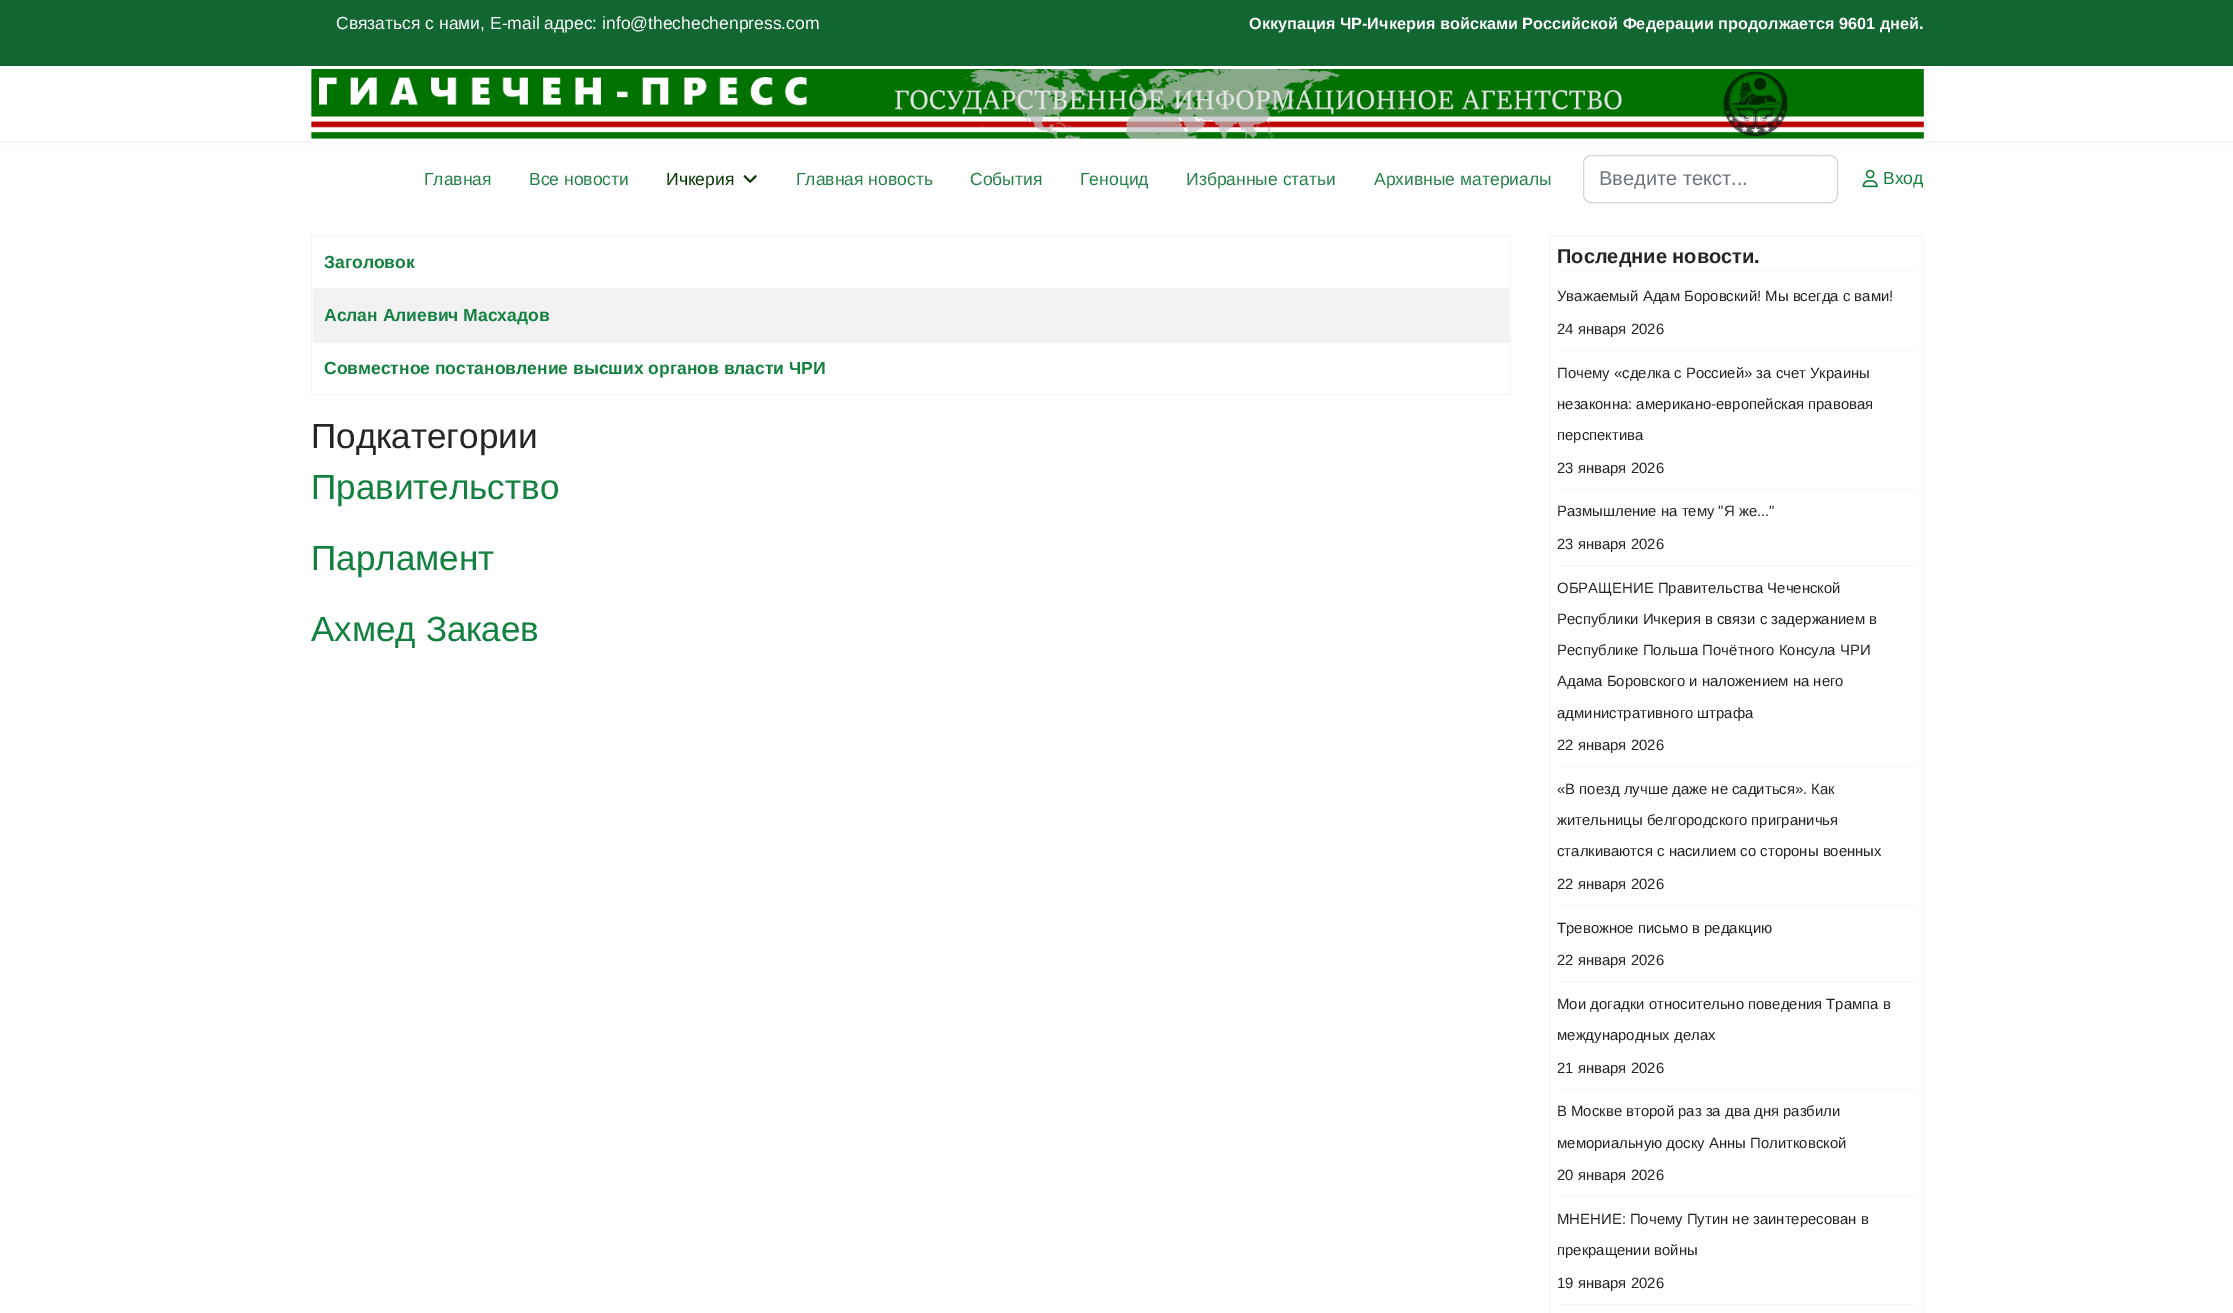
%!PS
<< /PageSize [2233 1313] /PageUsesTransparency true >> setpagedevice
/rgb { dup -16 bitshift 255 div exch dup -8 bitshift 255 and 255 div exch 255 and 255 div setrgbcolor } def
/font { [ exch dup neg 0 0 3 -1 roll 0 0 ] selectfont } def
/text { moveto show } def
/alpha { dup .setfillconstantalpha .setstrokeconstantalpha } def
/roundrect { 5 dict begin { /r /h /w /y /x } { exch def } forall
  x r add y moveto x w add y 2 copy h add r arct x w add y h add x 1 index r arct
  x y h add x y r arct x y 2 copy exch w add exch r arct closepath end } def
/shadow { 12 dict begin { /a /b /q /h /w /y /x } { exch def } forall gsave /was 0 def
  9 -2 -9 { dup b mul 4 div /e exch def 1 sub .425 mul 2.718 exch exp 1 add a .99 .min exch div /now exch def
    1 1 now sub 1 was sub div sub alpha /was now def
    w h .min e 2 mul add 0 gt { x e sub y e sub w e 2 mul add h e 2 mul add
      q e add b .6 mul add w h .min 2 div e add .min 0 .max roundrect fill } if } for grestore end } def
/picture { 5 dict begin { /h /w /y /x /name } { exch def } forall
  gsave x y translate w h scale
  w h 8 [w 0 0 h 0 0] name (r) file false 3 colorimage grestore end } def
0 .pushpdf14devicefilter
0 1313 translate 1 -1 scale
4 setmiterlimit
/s1 { /LiberationSans-Regular 17.5 font 16#FFFFFF rgb } def
/s2 { /LiberationSans-Bold 16.25 font 16#FFFFFF rgb } def
/s3 { /LiberationSans-Regular 17.5 font 16#238046 rgb } def
/s4 { /LiberationSans-Regular 17.5 font 16#063803 rgb } def
/s5 { /LiberationSans-Regular 20 font 16#6C757D rgb } def
/s6 { /LiberationSans-Regular 17.5 font 16#12803E rgb } def
/s7 { /LiberationSans-Bold 17.5 font 16#12803E rgb } def
/s8 { /LiberationSans-Regular 35 font 16#252525 rgb } def
/s9 { /LiberationSans-Regular 35 font 16#12803E rgb } def
/s10 { /LiberationSans-Bold 20 font 16#252525 rgb } def
/s11 { /LiberationSans-Regular 14.9 font 16#252525 rgb } def
16#FFFFFF rgb
0 0 2233 1313 rectfill
16#126632 rgb
0 0 2233 66 rectfill
s1
(Связаться с нами, E-mail адрес: info@thechechenpress.com) 336 29 text
s2
(Оккупация ЧР-Ичкерия войсками Российской Федерации продолжается 9601 дней.) 1249 29 text
16#000000 rgb
0 66 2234 75 0 2.5 0.1 shadow
16#FFFFFF rgb
0 66 2233 75 rectfill
(pic1.raw) 310 69 1614 70 picture
311 141 1613 3 rectfill
s3
(Главная) 424 185 text
(Все новости) 529 185 text
s4
(Ичкерия) 666 185 text
(pic2.raw) 743 175 14 8 picture
s3
(Главная новость) 796 185 text
(События) 970 185 text
(Геноцид) 1080 185 text
(Избранные статьи) 1186 185 text
(Архивные материалы) 1374 185 text
16#CED4DA rgb
1583.5 155.5 254 47 7.5 roundrect stroke
s5
(Введите текст...) 1599 185 text
(pic3.raw) 1862 169 16 19 picture
s6
(Вход) 1883 184 text
16#F2F2F2 rgb
311 235 1200 1 rectfill
1510 235 1 54 rectfill
311 288 1200 1 rectfill
311 235 1 54 rectfill
s7
(Заголовок) 324 268 text
16#F2F2F2 rgb
311 289 1200 1 rectfill
313 290 1196 53 rectfill
311 341 1200 1 rectfill
1510 341 1 54 rectfill
1510 289 1 54 rectfill
311 394 1200 1 rectfill
311 341 1 54 rectfill
311 289 1 54 rectfill
s7
(Аслан Алиевич Масхадов) 324 321 text
(Совместное постановление высших органов власти ЧРИ) 324 374 text
s8
(Подкатегории) 311 448 text
s9
(Правительство) 311 499 text
(Парламент) 311 570 text
(Ахмед Закаев) 311 641 text
16#F3F3F3 rgb
1549.5 235.5 374 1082 3.5 roundrect stroke
1558 270 357 1 rectfill
s10
(Последние новости.) 1557 263 text
16#F3F3F3 rgb
1558 350 357 1 rectfill
s11
(Уважаемый Адам Боровский! Мы всегда с вами!) 1557 301 text
(24 января 2026) 1557 334 text
16#F3F3F3 rgb
1558 489 357 1 rectfill
s11
(Почему «сделка с Россией» за счет Украины) 1557 378 text
(незаконна: американо-европейская правовая) 1557 409 text
(перспектива) 1557 440 text
(23 января 2026) 1557 473 text
16#F3F3F3 rgb
1558 565 357 1 rectfill
s11
(Размышление на тему "Я же...") 1557 516 text
(23 января 2026) 1557 549 text
16#F3F3F3 rgb
1558 766 357 1 rectfill
s11
(ОБРАЩЕНИЕ Правительства Чеченской) 1557 593 text
(Республики Ичкерия в связи с задержанием в) 1557 624 text
(Республике Польша Почётного Консула ЧРИ) 1557 655 text
(Адама Боровского и наложением на него) 1557 686 text
(административного штрафа) 1557 718 text
(22 января 2026) 1557 750 text
16#F3F3F3 rgb
1558 905 357 1 rectfill
s11
(«В поезд лучше даже не садиться». Как) 1557 794 text
(жительницы белгородского приграничья) 1557 825 text
(сталкиваются с насилием со стороны военных) 1557 856 text
(22 января 2026) 1557 889 text
16#F3F3F3 rgb
1558 981 357 1 rectfill
s11
(Тревожное письмо в редакцию) 1557 933 text
(22 января 2026) 1557 965 text
16#F3F3F3 rgb
1558 1089 357 1 rectfill
s11
(Мои догадки относительно поведения Трампа в) 1557 1009 text
(международных делах) 1557 1040 text
(21 января 2026) 1557 1073 text
16#F3F3F3 rgb
1558 1196 357 1 rectfill
s11
(В Москве второй раз за два дня разбили) 1557 1116 text
(мемориальную доску Анны Политковской) 1557 1148 text
(20 января 2026) 1557 1180 text
16#F3F3F3 rgb
1558 1304 357 1 rectfill
s11
(МНЕНИЕ: Почему Путин не заинтересован в) 1557 1224 text
(прекращении войны) 1557 1255 text
(19 января 2026) 1557 1288 text
.poppdf14devicefilter showpage
